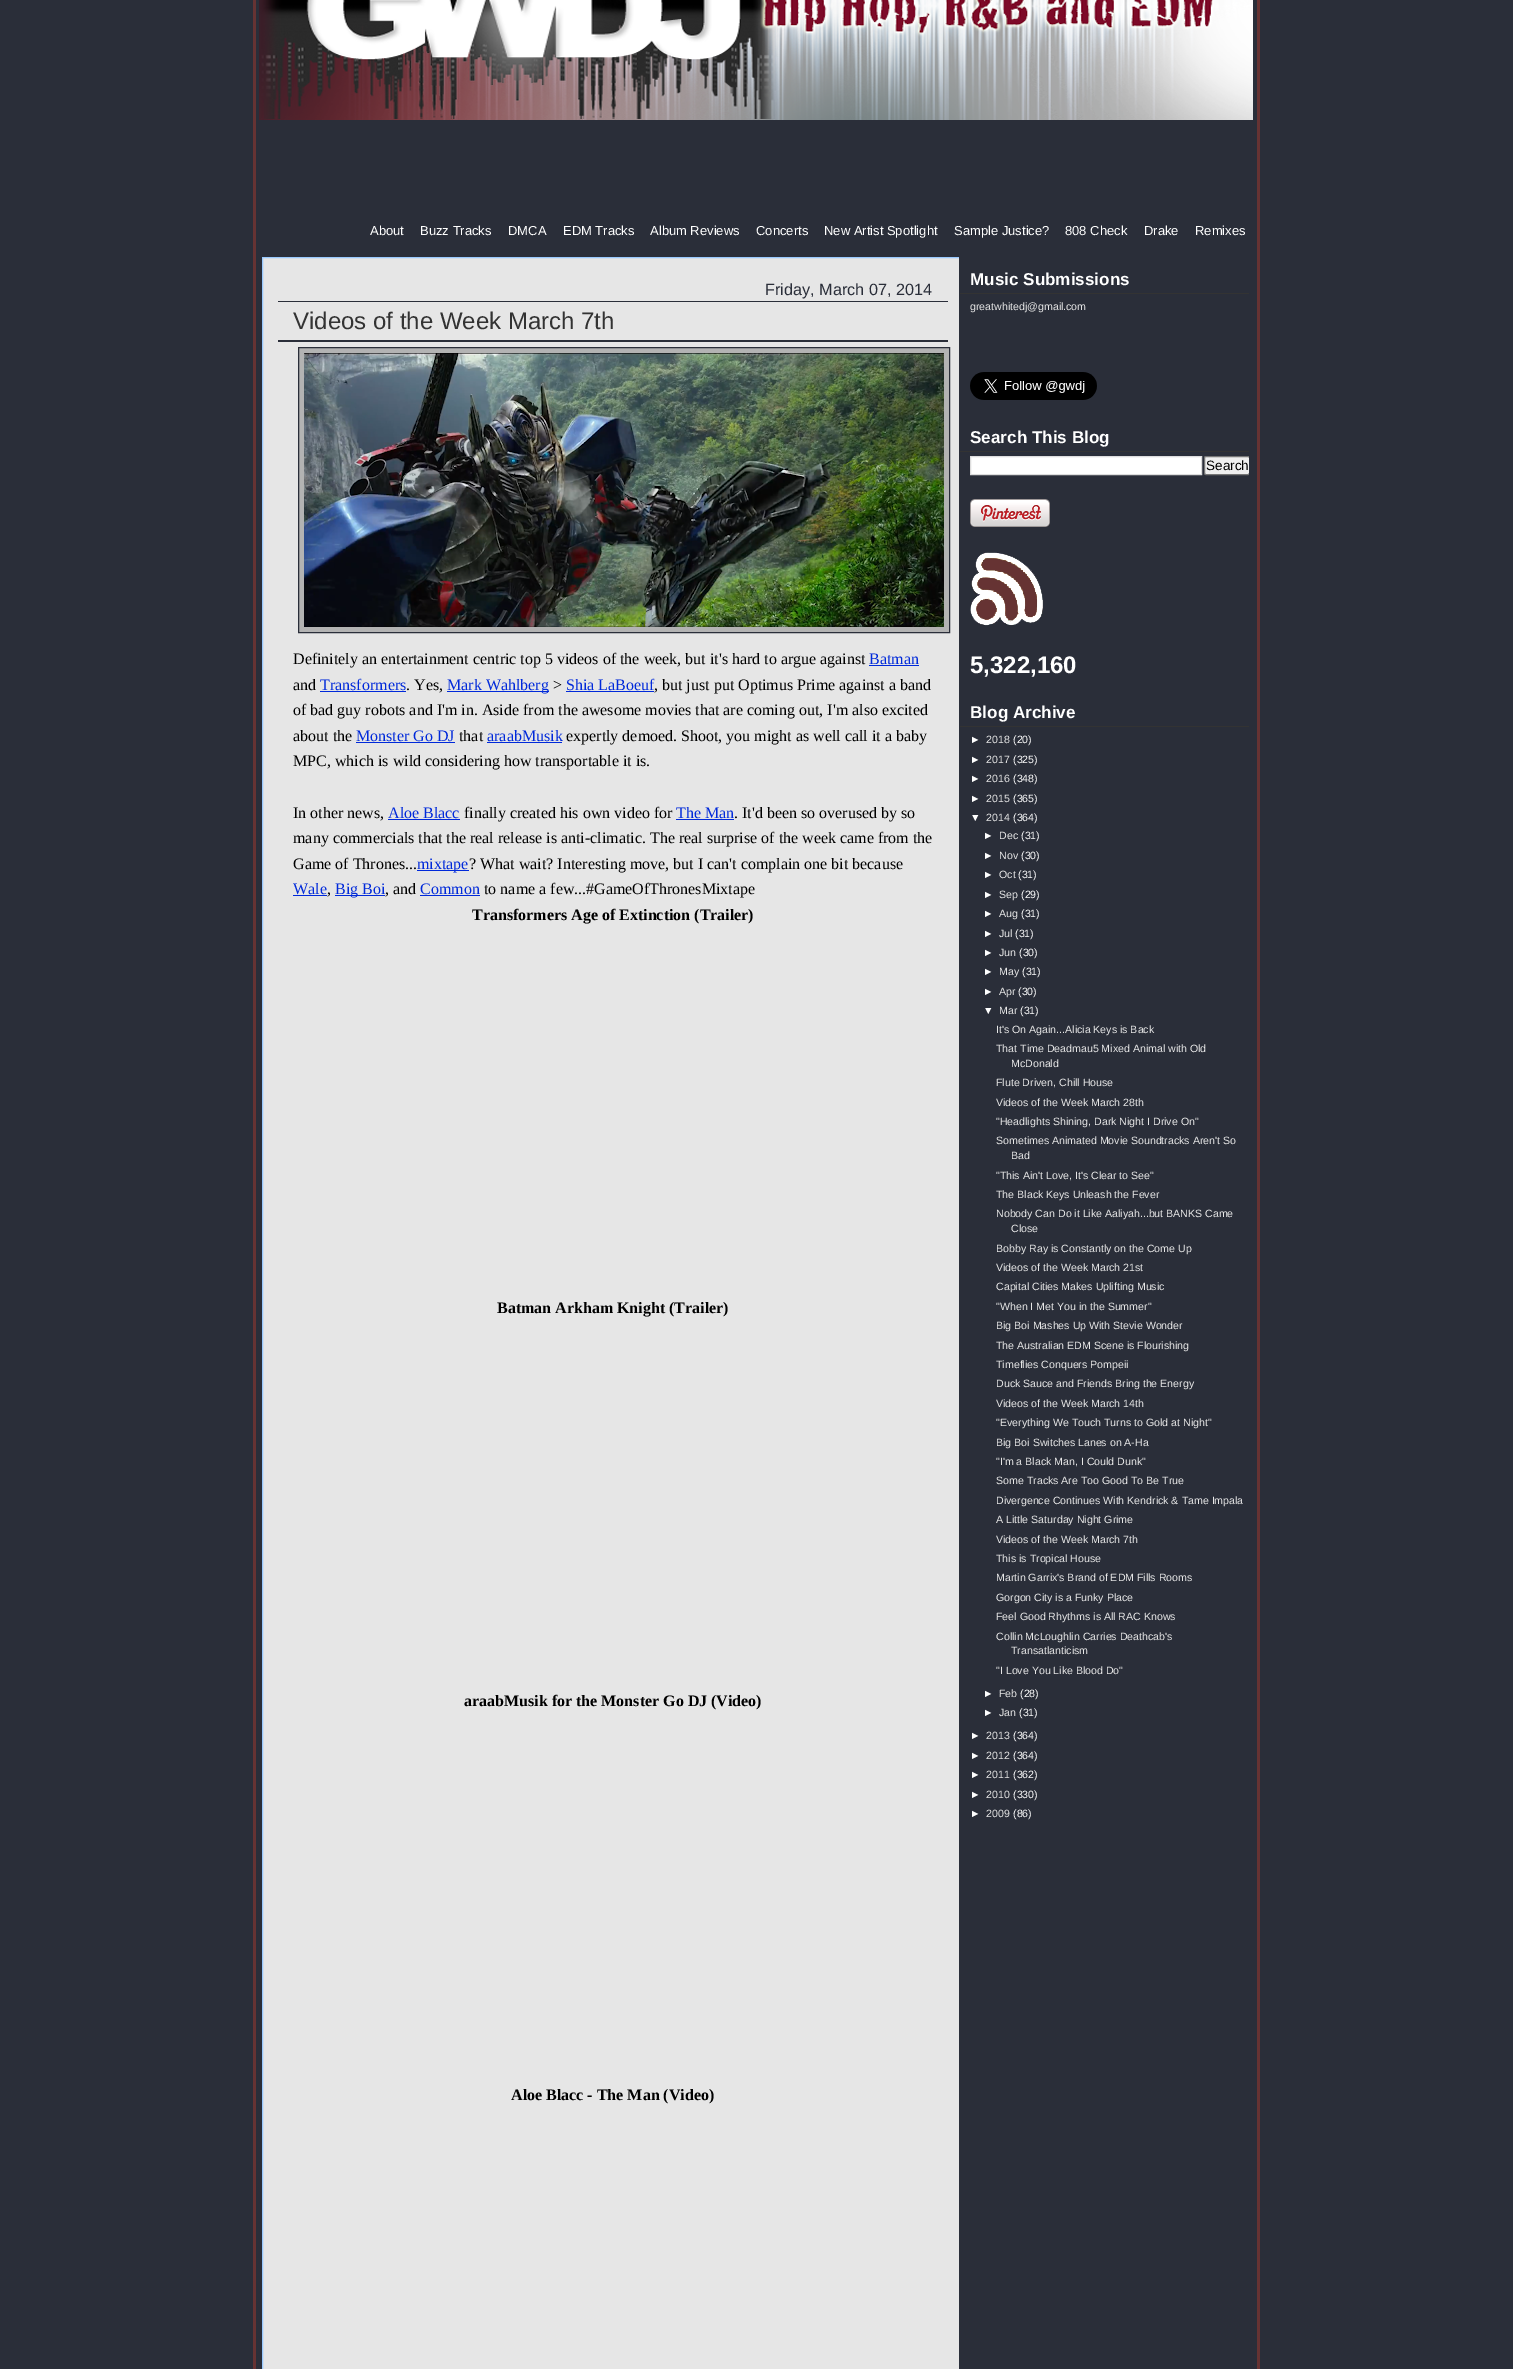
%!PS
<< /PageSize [1513 2369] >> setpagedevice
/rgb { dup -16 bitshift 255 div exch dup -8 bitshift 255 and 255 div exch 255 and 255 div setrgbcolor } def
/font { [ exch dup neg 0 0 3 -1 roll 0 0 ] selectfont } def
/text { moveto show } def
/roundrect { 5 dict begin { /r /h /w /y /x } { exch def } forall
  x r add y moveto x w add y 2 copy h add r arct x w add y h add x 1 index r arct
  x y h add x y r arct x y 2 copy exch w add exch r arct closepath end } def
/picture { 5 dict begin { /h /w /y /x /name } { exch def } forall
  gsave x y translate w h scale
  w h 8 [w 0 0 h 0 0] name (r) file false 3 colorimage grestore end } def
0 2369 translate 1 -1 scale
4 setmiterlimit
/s1 { /LiberationSans-Regular 13 font 16#FFFFFF rgb } def
/s2 { /LiberationSans-Regular 16.25 font 16#2A2E39 rgb } def
/s3 { /LiberationSans-Regular 24 font 16#333333 rgb } def
/s4 { /LiberationSerif-Regular 16 font 16#000000 rgb } def
/s5 { /LiberationSerif-Regular 16 font 16#0029DA rgb } def
/s6 { /LiberationSerif-Bold 16 font 16#000000 rgb } def
/s7 { /LiberationSans-Bold 17.1 font 16#FFFFFF rgb } def
/s8 { /LiberationSans-Regular 10.6 font 16#E6E6E6 rgb } def
/s9 { /LiberationSans-Regular 13.5 font 16#000000 rgb } def
/s10 { /LiberationSans-Bold 24 font 16#FFFFFF rgb } def
/s11 { /LiberationSans-Regular 10.6 font 16#FFFFFF rgb } def
16#2A2E39 rgb
0 0 1513 2369 rectfill
16#663333 rgb
1257 0 3 2369 rectfill
253 0 3 2369 rectfill
(pic1.raw) 259 0 994 120 picture
s1
(About) 370 235 text
(Buzz Tracks) 420 235 text
(DMCA) 508 235 text
(EDM Tracks) 563 235 text
(Album Reviews) 650 235 text
(Concerts) 756 235 text
(New Artist Spotlight) 824 235 text
(Sample Justice?) 954 235 text
(808 Check) 1065 235 text
(Drake) 1144 235 text
(Remixes) 1195 235 text
16#E6E6E6 rgb
263 258 696 2111 rectfill
16#333333 rgb
960 293 289 1 rectfill
960 451 289 1 rectfill
960 726 289 1 rectfill
gsave
259 257 700 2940 rectclip
16#99C9FF rgb
262.5 257.5 701 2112 rectstroke
grestore
s2
(Friday, March 07, 2014) 765 295 text
278 301 670 1 rectfill
278 340 670 2 rectfill
s3
(Videos of the Week March 7th) 293 329 text
16#B3B3B3 rgb
298.5 347.5 moveto 949.5 347.5 lineto 949.5 632.5 lineto 298.5 632.5 lineto closepath gsave fill grestore
16#2A2E39 rgb
stroke
(pic2.raw) 304 353 640 274 picture
s4
(Definitely an entertainment centric top 5 videos of the week, but it's hard to argue against) 293 664 text
s5
(Batman) 869 664 text
869 665 50 1 rectfill
s4
(and) 293 690 text
s5
(Transformers) 320 690 text
320 691 86 1 rectfill
s4
(. Yes,) 406 690 text
16#0029DA rgb
447 691 102 1 rectfill
(Mark Wahlberg) 447 690 text
s4
(>) 553 690 text
s5
(Shia LaBoeuf) 566 690 text
566 691 88 1 rectfill
s4
(, but just put Optimus Prime against a band) 654 690 text
(of bad guy robots and I'm in. Aside from the awesome movies that are coming out, I'm also excited) 293 715 text
(about the) 293 741 text
s5
(Monster Go DJ) 356 741 text
356 742 99 1 rectfill
s4
(that) 459 741 text
s5
(araabMusik) 487 741 text
487 742 75 1 rectfill
s4
(expertly demoed. Shoot, you might as well call it a baby) 566 741 text
(MPC, which is wild considering how transportable it is.) 293 766 text
(In other news,) 293 818 text
s5
(Aloe Blacc) 388 818 text
388 819 72 1 rectfill
s4
(finally created his own video for) 464 818 text
s5
(The Man) 676 818 text
676 819 58 1 rectfill
s4
(. It'd been so overused by so) 734 818 text
(many commercials that the real release is anti-climatic. The real surprise of the week came from the) 293 843 text
(Game of Thrones...) 293 869 text
16#0029DA rgb
417 870 52 1 rectfill
(mixtape) 417 869 text
s4
(? What wait? Interesting move, but I can't complain one bit because) 469 869 text
s5
(Wale) 293 894 text
293 895 34 1 rectfill
s4
(,) 327 894 text
16#0029DA rgb
335 895 50 1 rectfill
(Big Boi) 335 894 text
s4
(, and) 385 894 text
s5
(Common) 420 894 text
420 895 60 1 rectfill
s4
(to name a few...#GameOfThronesMixtape) 484 894 text
s6
(Transformers Age of Extinction \(Trailer\)) 472 920 text
(Batman Arkham Knight \(Trailer\)) 497 1313 text
(araabMusik for the Monster Go DJ \(Video\)) 464 1706 text
(Aloe Blacc - The Man \(Video\)) 511 2100 text
s7
(Music Submissions) 970 285 text
s8
(greatwhitedj@gmail.com) 970 310 text
(pic3.raw) 970 372 127 28 picture
s7
(Search This Blog) 970 443 text
970.5 456.5 moveto 1201.5 456.5 lineto 1201.5 474.5 lineto 970.5 474.5 lineto closepath gsave fill grestore
16#DDDDDD rgb
stroke
gsave
959 267 290 1580 rectclip
16#EFEFEF rgb
1204.5 456.5 45 18 1.5 roundrect gsave fill grestore
16#767676 rgb
stroke
grestore
s9
(Search) 1206 470 text
(pic4.raw) 970 499 80 28 picture
(pic5.raw) 970 552 73 74 picture
s10
(5,322,160) 970 673 text
s7
(Blog Archive) 970 718 text
s11
(►) 970 743 text
s8
(2018) 986 743 text
s11
(\(20\)) 1013 743 text
(►) 970 763 text
s8
(2017) 986 763 text
s11
(\(325\)) 1013 763 text
(►) 970 782 text
s8
(2016) 986 782 text
s11
(\(348\)) 1013 782 text
(►) 970 802 text
s8
(2015) 986 802 text
s11
(\(365\)) 1013 802 text
(▼) 970 821 text
s8
(2014) 986 821 text
s11
(\(364\)) 1013 821 text
(►) 983 839 text
s8
(Dec) 999 839 text
s11
(\(31\)) 1021 839 text
(►) 983 859 text
s8
(Nov) 999 859 text
s11
(\(30\)) 1021 859 text
(►) 983 878 text
s8
(Oct) 999 878 text
s11
(\(31\)) 1018 878 text
(►) 983 898 text
s8
(Sep) 999 898 text
s11
(\(29\)) 1021 898 text
(►) 983 917 text
s8
(Aug) 999 917 text
s11
(\(31\)) 1021 917 text
(►) 983 937 text
s8
(Jul) 999 937 text
s11
(\(31\)) 1015 937 text
(►) 983 956 text
s8
(Jun) 999 956 text
s11
(\(30\)) 1019 956 text
(►) 983 975 text
s8
(May) 999 975 text
s11
(\(31\)) 1022 975 text
(►) 983 995 text
s8
(Apr) 999 995 text
s11
(\(30\)) 1018 995 text
(▼) 983 1014 text
s8
(Mar) 999 1014 text
s11
(\(31\)) 1020 1014 text
s8
(It's On Again...Alicia Keys is Back) 996 1033 text
(That Time Deadmau5 Mixed Animal with Old) 996 1052 text
(McDonald) 1011 1067 text
(Flute Driven, Chill House) 996 1086 text
(Videos of the Week March 28th) 996 1106 text
("Headlights Shining, Dark Night I Drive On") 996 1125 text
(Sometimes Animated Movie Soundtracks Aren't So) 996 1144 text
(Bad) 1011 1159 text
("This Ain't Love, It's Clear to See") 996 1179 text
(The Black Keys Unleash the Fever) 996 1198 text
(Nobody Can Do it Like Aaliyah...but BANKS Came) 996 1217 text
(Close) 1011 1232 text
(Bobby Ray is Constantly on the Come Up) 996 1252 text
(Videos of the Week March 21st) 996 1271 text
(Capital Cities Makes Uplifting Music) 996 1290 text
("When I Met You in the Summer") 996 1310 text
(Big Boi Mashes Up With Stevie Wonder) 996 1329 text
(The Australian EDM Scene is Flourishing) 996 1349 text
(Timeflies Conquers Pompeii) 996 1368 text
(Duck Sauce and Friends Bring the Energy) 996 1387 text
(Videos of the Week March 14th) 996 1407 text
("Everything We Touch Turns to Gold at Night") 996 1426 text
(Big Boi Switches Lanes on A-Ha) 996 1446 text
("I'm a Black Man, I Could Dunk") 996 1465 text
(Some Tracks Are Too Good To Be True) 996 1484 text
(Divergence Continues With Kendrick & Tame Impala) 996 1504 text
(A Little Saturday Night Grime) 996 1523 text
(Videos of the Week March 7th) 996 1543 text
(This is Tropical House) 996 1562 text
(Martin Garrix's Brand of EDM Fills Rooms) 996 1581 text
(Gorgon City is a Funky Place) 996 1601 text
(Feel Good Rhythms is All RAC Knows) 996 1620 text
(Collin McLoughlin Carries Deathcab's) 996 1640 text
(Transatlanticism) 1011 1654 text
("I Love You Like Blood Do") 996 1674 text
s11
(►) 983 1697 text
s8
(Feb) 999 1697 text
s11
(\(28\)) 1020 1697 text
(►) 983 1716 text
s8
(Jan) 999 1716 text
s11
(\(31\)) 1019 1716 text
(►) 970 1739 text
s8
(2013) 986 1739 text
s11
(\(364\)) 1013 1739 text
(►) 970 1759 text
s8
(2012) 986 1759 text
s11
(\(364\)) 1013 1759 text
(►) 970 1778 text
s8
(2011) 986 1778 text
s11
(\(362\)) 1013 1778 text
(►) 970 1798 text
s8
(2010) 986 1798 text
s11
(\(330\)) 1013 1798 text
(►) 970 1817 text
s8
(2009) 986 1817 text
s11
(\(86\)) 1013 1817 text
showpage
